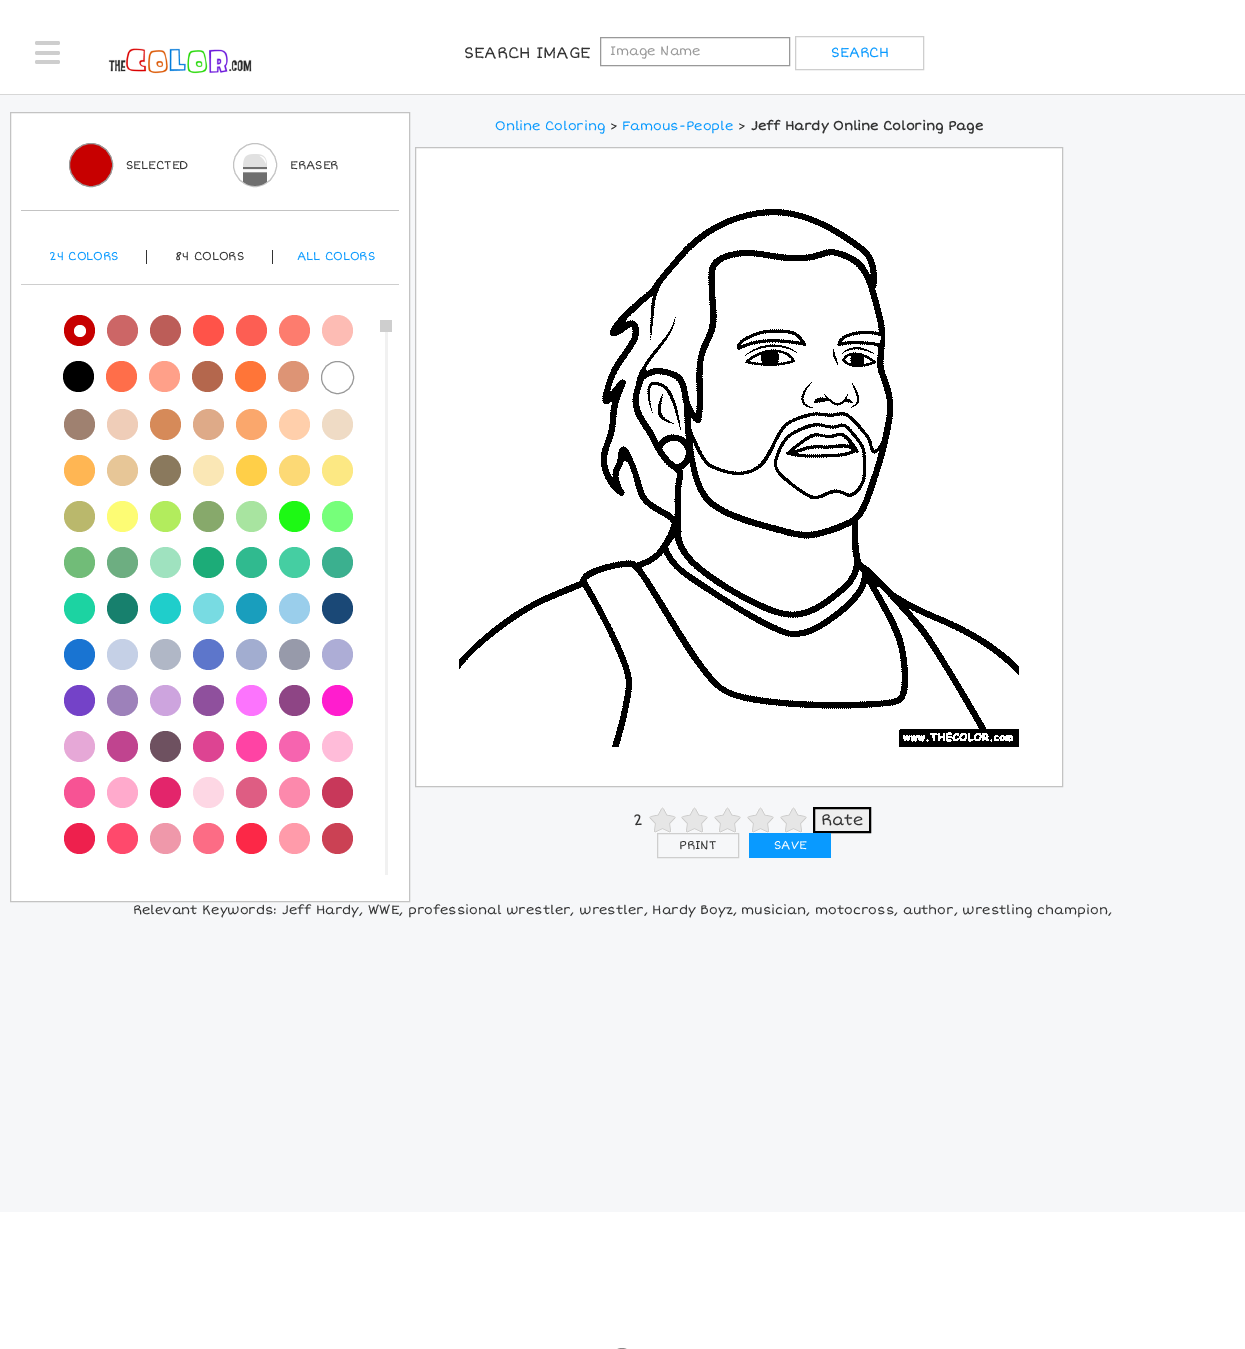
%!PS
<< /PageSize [1245 1349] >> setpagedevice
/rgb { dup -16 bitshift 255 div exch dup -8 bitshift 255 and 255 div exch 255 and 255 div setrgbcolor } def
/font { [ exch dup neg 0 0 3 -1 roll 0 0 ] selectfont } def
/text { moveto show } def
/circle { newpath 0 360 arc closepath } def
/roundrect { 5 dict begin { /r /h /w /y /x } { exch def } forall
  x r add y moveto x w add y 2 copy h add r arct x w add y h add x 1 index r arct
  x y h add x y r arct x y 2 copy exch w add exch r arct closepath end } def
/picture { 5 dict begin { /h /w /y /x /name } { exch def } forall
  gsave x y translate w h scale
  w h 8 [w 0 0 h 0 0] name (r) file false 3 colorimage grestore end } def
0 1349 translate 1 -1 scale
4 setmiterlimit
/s1 { /ShortStack-Regular 16 font 16#333333 rgb } def
/s2 { /ShortStack-Regular 13 font 16#999999 rgb } def
/s3 { /ShortStack-Regular 14 font 16#099AFF rgb } def
/s4 { /ShortStack-Regular 12 font 16#333333 rgb } def
/s5 { /ShortStack-Regular 12 font 16#099AFF rgb } def
/s6 { /ShortStack-Regular 13 font 16#099AFF rgb } def
/s7 { /ShortStack-Regular 13 font 16#333333 rgb } def
/s8 { /ShortStack-Bold 13 font 16#333333 rgb } def
/s9 { /ShortStack-Regular 12 font 16#FFFFFF rgb } def
16#F6F7F9 rgb
0 0 1245 1349 rectfill
16#FFFFFF rgb
0 0 1245 94 rectfill
16#D7D7D7 rgb
0 94 1245 1 rectfill
16#CECECE rgb
35 41 25 4 2 roundrect fill
35 51 25 4 2 roundrect fill
35 60 25 4 2 roundrect fill
(pic1.raw) 108 48 144 26 picture
s1
(SEARCH IMAGE) 464 58 text
16#999999 rgb
600.5 37.5 189 28 rectstroke
s2
(Image Name) 610 55 text
16#CECECE rgb
795.5 36.5 128 33 rectstroke
s3
(SEARCH) 831 57 text
16#FFFFFF rgb
10.5 112.5 moveto 409.5 112.5 lineto 409.5 901.5 lineto 10.5 901.5 lineto closepath gsave fill grestore
16#C3C3C3 rgb
stroke
21 210 378 1 rectfill
16#C70000 rgb
91 165 21.5 circle gsave fill grestore
16#999999 rgb
stroke
s4
(SELECTED) 126 169 text
16#C3C3C3 rgb
255 165 21.5 circle stroke
(pic2.raw) 243 154 24 32 picture
s4
(ERASER) 290 169 text
16#CECECE rgb
21 284 378 1 rectfill
s5
(24 COLORS) 49 260 text
16#333333 rgb
146 250 1 14 rectfill
(84 COLORS) 175 260 text
272 250 1 14 rectfill
s5
(ALL COLORS) 297 260 text
16#C70000 rgb
79.5 330.5 15.5 circle fill
16#FFFFFF rgb
80 331 6 circle fill
16#CC6666 rgb
122.5 330.5 15.5 circle fill
16#BC5D58 rgb
165.5 330.5 15.5 circle fill
16#FF5349 rgb
208.5 330.5 15.5 circle fill
16#FD5E53 rgb
251.5 330.5 15.5 circle fill
16#FD7C6E rgb
294.5 330.5 15.5 circle fill
16#FDBCB4 rgb
337.5 330.5 15.5 circle fill
16#000000 rgb
78.5 376.5 15.5 circle fill
16#FF6E4A rgb
121.5 376.5 15.5 circle fill
16#FFA089 rgb
164.5 376.5 15.5 circle fill
16#B4674D rgb
207.5 376.5 15.5 circle fill
16#FF7538 rgb
250.5 376.5 15.5 circle fill
16#DD9475 rgb
293.5 376.5 15.5 circle fill
16#999999 rgb
337.5 377.5 16 circle stroke
16#9F8170 rgb
79.5 424.5 15.5 circle fill
16#EFCDB8 rgb
122.5 424.5 15.5 circle fill
16#D68A59 rgb
165.5 424.5 15.5 circle fill
16#DEAA88 rgb
208.5 424.5 15.5 circle fill
16#FAA76C rgb
251.5 424.5 15.5 circle fill
16#FFCFAB rgb
294.5 424.5 15.5 circle fill
16#EFDBC5 rgb
337.5 424.5 15.5 circle fill
16#FFB653 rgb
79.5 470.5 15.5 circle fill
16#E7C697 rgb
122.5 470.5 15.5 circle fill
16#8A795D rgb
165.5 470.5 15.5 circle fill
16#FAE7B5 rgb
208.5 470.5 15.5 circle fill
16#FFCF48 rgb
251.5 470.5 15.5 circle fill
16#FCD975 rgb
294.5 470.5 15.5 circle fill
16#FCE883 rgb
337.5 470.5 15.5 circle fill
16#BAB86C rgb
79.5 516.5 15.5 circle fill
16#FDFC74 rgb
122.5 516.5 15.5 circle fill
16#B2EC5D rgb
165.5 516.5 15.5 circle fill
16#87A96B rgb
208.5 516.5 15.5 circle fill
16#A8E4A0 rgb
251.5 516.5 15.5 circle fill
16#1DF914 rgb
294.5 516.5 15.5 circle fill
16#76FF7A rgb
337.5 516.5 15.5 circle fill
16#71BC78 rgb
79.5 562.5 15.5 circle fill
16#6DAE81 rgb
122.5 562.5 15.5 circle fill
16#9FE2BF rgb
165.5 562.5 15.5 circle fill
16#1CAC78 rgb
208.5 562.5 15.5 circle fill
16#30BA8F rgb
251.5 562.5 15.5 circle fill
16#45CEA2 rgb
294.5 562.5 15.5 circle fill
16#3BB08F rgb
337.5 562.5 15.5 circle fill
16#1CD3A2 rgb
79.5 608.5 15.5 circle fill
16#17806D rgb
122.5 608.5 15.5 circle fill
16#1FCECB rgb
165.5 608.5 15.5 circle fill
16#78DBE2 rgb
208.5 608.5 15.5 circle fill
16#199EBD rgb
251.5 608.5 15.5 circle fill
16#9ACEEB rgb
294.5 608.5 15.5 circle fill
16#1A4876 rgb
337.5 608.5 15.5 circle fill
16#1974D2 rgb
79.5 654.5 15.5 circle fill
16#C5D0E6 rgb
122.5 654.5 15.5 circle fill
16#B0B7C6 rgb
165.5 654.5 15.5 circle fill
16#5D76CB rgb
208.5 654.5 15.5 circle fill
16#A2ADD0 rgb
251.5 654.5 15.5 circle fill
16#979AAA rgb
294.5 654.5 15.5 circle fill
16#ADADD6 rgb
337.5 654.5 15.5 circle fill
16#7442C8 rgb
79.5 700.5 15.5 circle fill
16#9D81BA rgb
122.5 700.5 15.5 circle fill
16#CDA4DE rgb
165.5 700.5 15.5 circle fill
16#8F509D rgb
208.5 700.5 15.5 circle fill
16#FC74FD rgb
251.5 700.5 15.5 circle fill
16#8E4585 rgb
294.5 700.5 15.5 circle fill
16#FF1DCE rgb
337.5 700.5 15.5 circle fill
16#E6A8D7 rgb
79.5 746.5 15.5 circle fill
16#C0448F rgb
122.5 746.5 15.5 circle fill
16#6E5160 rgb
165.5 746.5 15.5 circle fill
16#DD4492 rgb
208.5 746.5 15.5 circle fill
16#FF43A4 rgb
251.5 746.5 15.5 circle fill
16#F664AF rgb
294.5 746.5 15.5 circle fill
16#FFBCD9 rgb
337.5 746.5 15.5 circle fill
16#F75394 rgb
79.5 792.5 15.5 circle fill
16#FFAACC rgb
122.5 792.5 15.5 circle fill
16#E3256B rgb
165.5 792.5 15.5 circle fill
16#FDD7E4 rgb
208.5 792.5 15.5 circle fill
16#DE5D83 rgb
251.5 792.5 15.5 circle fill
16#FC89AC rgb
294.5 792.5 15.5 circle fill
16#C8385A rgb
337.5 792.5 15.5 circle fill
16#EE204D rgb
79.5 838.5 15.5 circle fill
16#FF496C rgb
122.5 838.5 15.5 circle fill
16#EF98AA rgb
165.5 838.5 15.5 circle fill
16#FC6C85 rgb
208.5 838.5 15.5 circle fill
16#FC2847 rgb
251.5 838.5 15.5 circle fill
16#FF9BAA rgb
294.5 838.5 15.5 circle fill
16#CB4154 rgb
337.5 838.5 15.5 circle fill
16#F1F1F1 rgb
385 332 3 543 rectfill
16#CECECE rgb
380 320 12 12 rectfill
s6
(Online Coloring) 495 130 text
s7
(>) 610 130 text
s6
(Famous-People) 622 130 text
s7
(>) 738 130 text
s8
(Jeff Hardy Online Coloring Page) 751 130 text
16#FFFFFF rgb
415.5 147.5 moveto 1062.5 147.5 lineto 1062.5 786.5 lineto 415.5 786.5 lineto closepath gsave fill grestore
16#C3C3C3 rgb
stroke
(pic3.raw) 459 209 560 538 picture
s1
(2) 633 825 text
(pic4.raw) 649 807 27 26 picture
(pic4.raw) 681 807 27 26 picture
(pic4.raw) 714 807 27 26 picture
(pic4.raw) 747 807 27 26 picture
(pic4.raw) 780 807 27 26 picture
16#EFEFEF rgb
814 808 moveto 870 808 lineto 870 832 lineto 814 832 lineto closepath gsave fill grestore
16#000000 rgb
2 setlinewidth
stroke
s1
(Rate) 821 825 text
16#CECECE rgb
1 setlinewidth
657.5 833.5 81 24 rectstroke
s4
(PRINT) 679 849 text
16#099AFF rgb
749 833 82 25 rectfill
s9
(SAVE) 774 849 text
s7
(Relevant Keywords: Jeff Hardy, WWE, professional wrestler, wrestler, Hardy Boyz, musician, motocross, author, wrestling champion,) 133 914 text
16#FFFFFF rgb
0 1212 1245 137 rectfill
16#F9F9F9 rgb
611.5 1348.5 21 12 10.5 roundrect stroke
16#888888 rgb
611.5 1348.5 21 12 10.5 roundrect stroke
showpage
